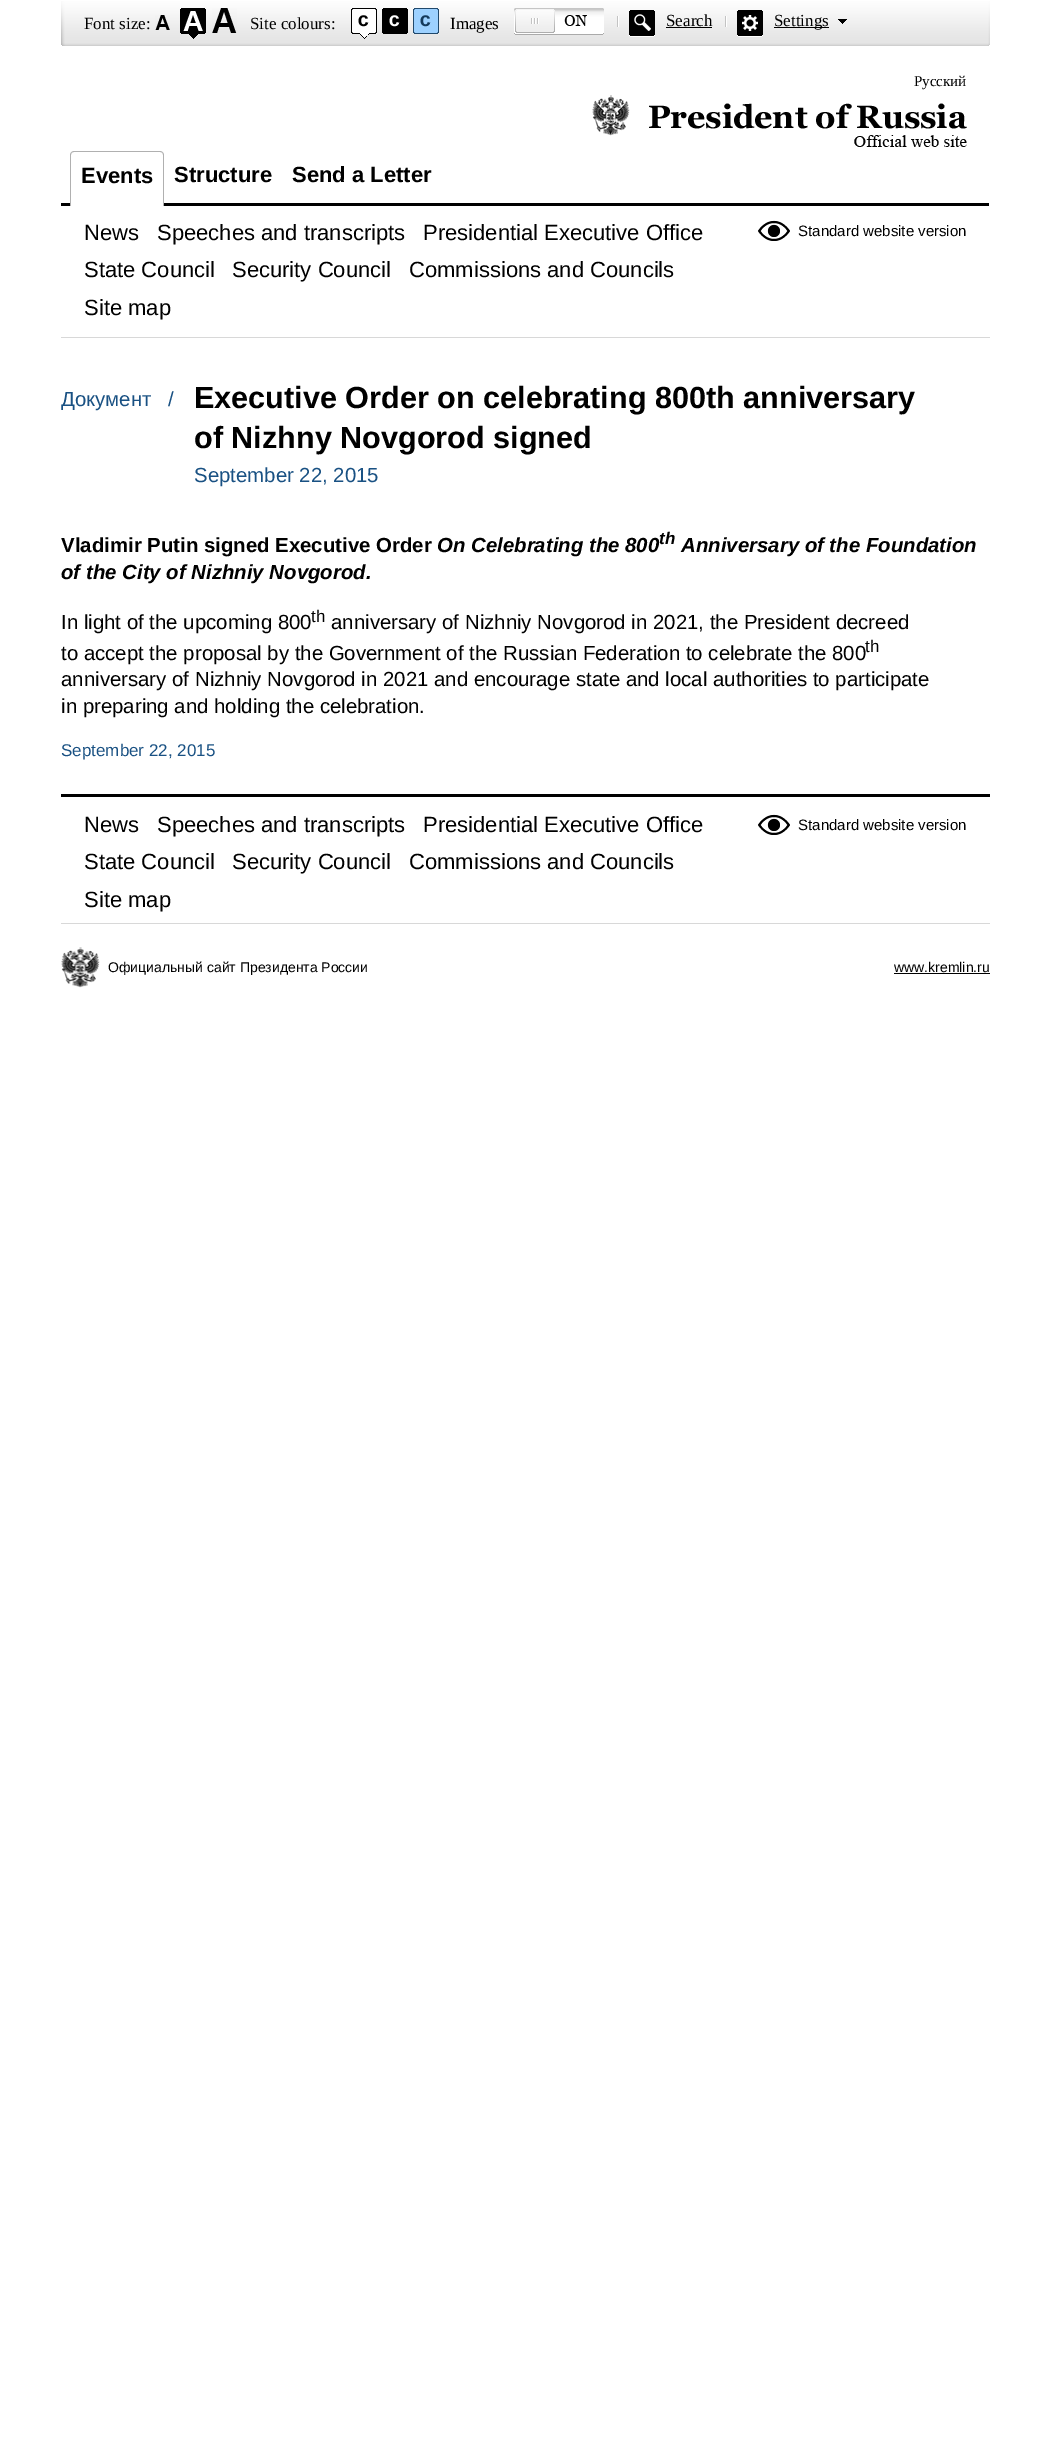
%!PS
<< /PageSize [1050 2437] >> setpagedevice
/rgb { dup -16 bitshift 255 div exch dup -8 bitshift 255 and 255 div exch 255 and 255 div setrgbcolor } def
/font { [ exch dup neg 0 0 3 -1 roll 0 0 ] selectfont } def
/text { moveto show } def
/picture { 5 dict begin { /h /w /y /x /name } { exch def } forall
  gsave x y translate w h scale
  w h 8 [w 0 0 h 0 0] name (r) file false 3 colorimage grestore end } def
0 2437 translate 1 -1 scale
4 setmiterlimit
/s1 { /LiberationSerif-Regular 17 font 16#000000 rgb } def
/s2 { /LiberationSerif-Regular 15 font 16#000000 rgb } def
/s3 { /LiberationSans-Bold 22 font 16#000000 rgb } def
/s4 { /LiberationSans-Regular 22 font 16#000000 rgb } def
/s5 { /LiberationSans-Regular 15 font 16#000000 rgb } def
/s6 { /LiberationSans-Regular 20.4 font 16#195183 rgb } def
/s7 { /LiberationSans-Bold 30.6 font 16#000000 rgb } def
/s8 { /LiberationSans-Bold 20.4 font 16#000000 rgb } def
/s9 { /LiberationSans-BoldItalic 20.4 font 16#000000 rgb } def
/s10 { /LiberationSans-BoldItalic 17 font 16#000000 rgb } def
/s11 { /LiberationSans-Regular 20.4 font 16#000000 rgb } def
/s12 { /LiberationSans-Regular 17 font 16#000000 rgb } def
/s13 { /LiberationSans-Regular 17 font 16#195183 rgb } def
/s14 { /LiberationSans-Regular 14 font 16#000000 rgb } def
16#FFFFFF rgb
0 0 1050 2437 rectfill
(pic1.raw) 61 1 929 45 picture
s1
(Font size:) 84 29 text
(pic2.raw) 155 15 15 15 picture
(pic3.raw) 180 8 26 31 picture
(pic4.raw) 212 8 25 25 picture
(Site colours:) 250 29 text
(pic5.raw) 351 8 26 31 picture
(pic6.raw) 382 8 26 26 picture
(pic7.raw) 413 8 26 26 picture
(Images) 450 29 text
(pic8.raw) 514 8 90 27 picture
(pic9.raw) 617 10 38 27 picture
(Search) 666 26 text
666 27 46 1 rectfill
(pic10.raw) 725 10 38 27 picture
774 27 55 1 rectfill
(Settings) 774 26 text
(pic11.raw) 838 19 9 5 picture
s2
(Русский) 914 86 text
(pic12.raw) 592 95 375 52 picture
16#D8D8D8 rgb
61 337 929 1 rectfill
16#000000 rgb
61 203 928 3 rectfill
16#FFFFFF rgb
74 151 moveto 160 151 lineto 162 151 164 153 164 155 curveto 164 206 lineto 70 206 lineto 70 155 lineto 70 153 72 151 74 151 curveto closepath fill
16#B0B0B0 rgb
74 151 moveto 160 151 lineto 162 151 164 153 164 155 curveto 164 206 lineto 70 206 lineto 70 155 lineto 70 153 72 151 74 151 curveto closepath 74 152 moveto 160 152 lineto 162 152 163 153 163 155 curveto 163 206 lineto 71 206 lineto 71 155 lineto 71 153 72 152 74 152 curveto closepath eofill
s3
(Events) 81 183 text
(Structure) 174 182 text
(Send a Letter) 292 182 text
s4
(News) 84 240 text
(Speeches and transcripts) 157 240 text
(Presidential Executive Office) 423 240 text
(State Council) 84 277 text
(Security Council) 232 277 text
(Commissions and Councils) 409 277 text
(Site map) 84 315 text
(pic13.raw) 758 220 32 21 picture
s5
(Standard website version) 798 236 text
s6
(Документ) 61 406 text
(/) 168 406 text
s7
(Executive Order on celebrating 800th anniversary) 194 408 text
(of Nizhny Novgorod signed) 194 448 text
s6
(September 22, 2015) 194 482 text
s8
(Vladimir Putin signed Executive Order) 61 552 text
s9
(On Celebrating the 800) 437 552 text
s10
(th) 659 544 text
s9
(Anniversary of the Foundation) 681 552 text
(of the City of Nizhniy Novgorod.) 61 579 text
s11
(In light of the upcoming 800) 61 629 text
s12
(th) 311 622 text
s11
(anniversary of Nizhniy Novgorod in 2021, the President decreed) 331 629 text
(to accept the proposal by the Government of the Russian Federation to celebrate the 800) 61 660 text
s12
(th) 865 652 text
s11
(anniversary of Nizhniy Novgorod in 2021 and encourage state and local authorities to participate) 61 686 text
(in preparing and holding the celebration.) 61 713 text
s13
(September 22, 2015) 61 756 text
16#000000 rgb
61 794 929 3 rectfill
s4
(News) 84 832 text
(Speeches and transcripts) 157 832 text
(Presidential Executive Office) 423 832 text
(State Council) 84 869 text
(Security Council) 232 869 text
(Commissions and Councils) 409 869 text
(Site map) 84 907 text
(pic13.raw) 758 814 32 21 picture
s5
(Standard website version) 798 830 text
16#D8D8D8 rgb
61 923 929 1 rectfill
(pic14.raw) 61 947 39 41 picture
s14
(Официальный сайт Президента России) 108 972 text
(www.kremlin.ru) 894 972 text
894 973 96 1 rectfill
showpage
